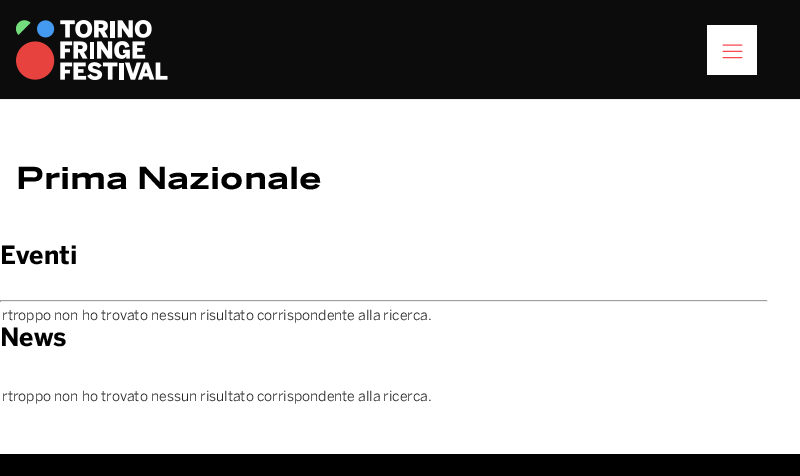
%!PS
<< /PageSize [800 476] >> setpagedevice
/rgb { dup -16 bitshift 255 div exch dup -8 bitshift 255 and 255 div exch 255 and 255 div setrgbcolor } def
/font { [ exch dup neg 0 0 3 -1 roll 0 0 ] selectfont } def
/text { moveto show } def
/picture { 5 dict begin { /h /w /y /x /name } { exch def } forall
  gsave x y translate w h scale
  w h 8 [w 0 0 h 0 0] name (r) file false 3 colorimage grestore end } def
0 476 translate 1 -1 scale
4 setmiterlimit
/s1 { /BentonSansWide-Bold 30 font 16#000000 rgb } def
/s2 { /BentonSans-Bold 25 font 16#000000 rgb } def
/s3 { /BentonSans-Regular 14 font 16#282828 rgb } def
16#FFFFFF rgb
0 0 800 476 rectfill
16#0C0C0C rgb
0 0 800 99 rectfill
16#EDEFF2 rgb
0 99 800 1 rectfill
(pic1.raw) 16 20 152 60 picture
16#FFFFFF rgb
707 25 50 50 rectfill
(pic2.raw) 722 44 21 15 picture
s1
(Prima Nazionale) 16 189 text
s2
(Eventi) 0 264 text
16#9F9F9F rgb
0 300 768 1 rectfill
16#EEEEEE rgb
767 300 1 2 rectfill
0 301 768 1 rectfill
16#9F9F9F rgb
0 300 1 2 rectfill
s3
(rtroppo non ho trovato nessun risultato corrispondente alla ricerca.) 2 320 text
s2
(News) 0 346 text
s3
(rtroppo non ho trovato nessun risultato corrispondente alla ricerca.) 2 401 text
16#000000 rgb
0 454 800 22 rectfill
showpage
